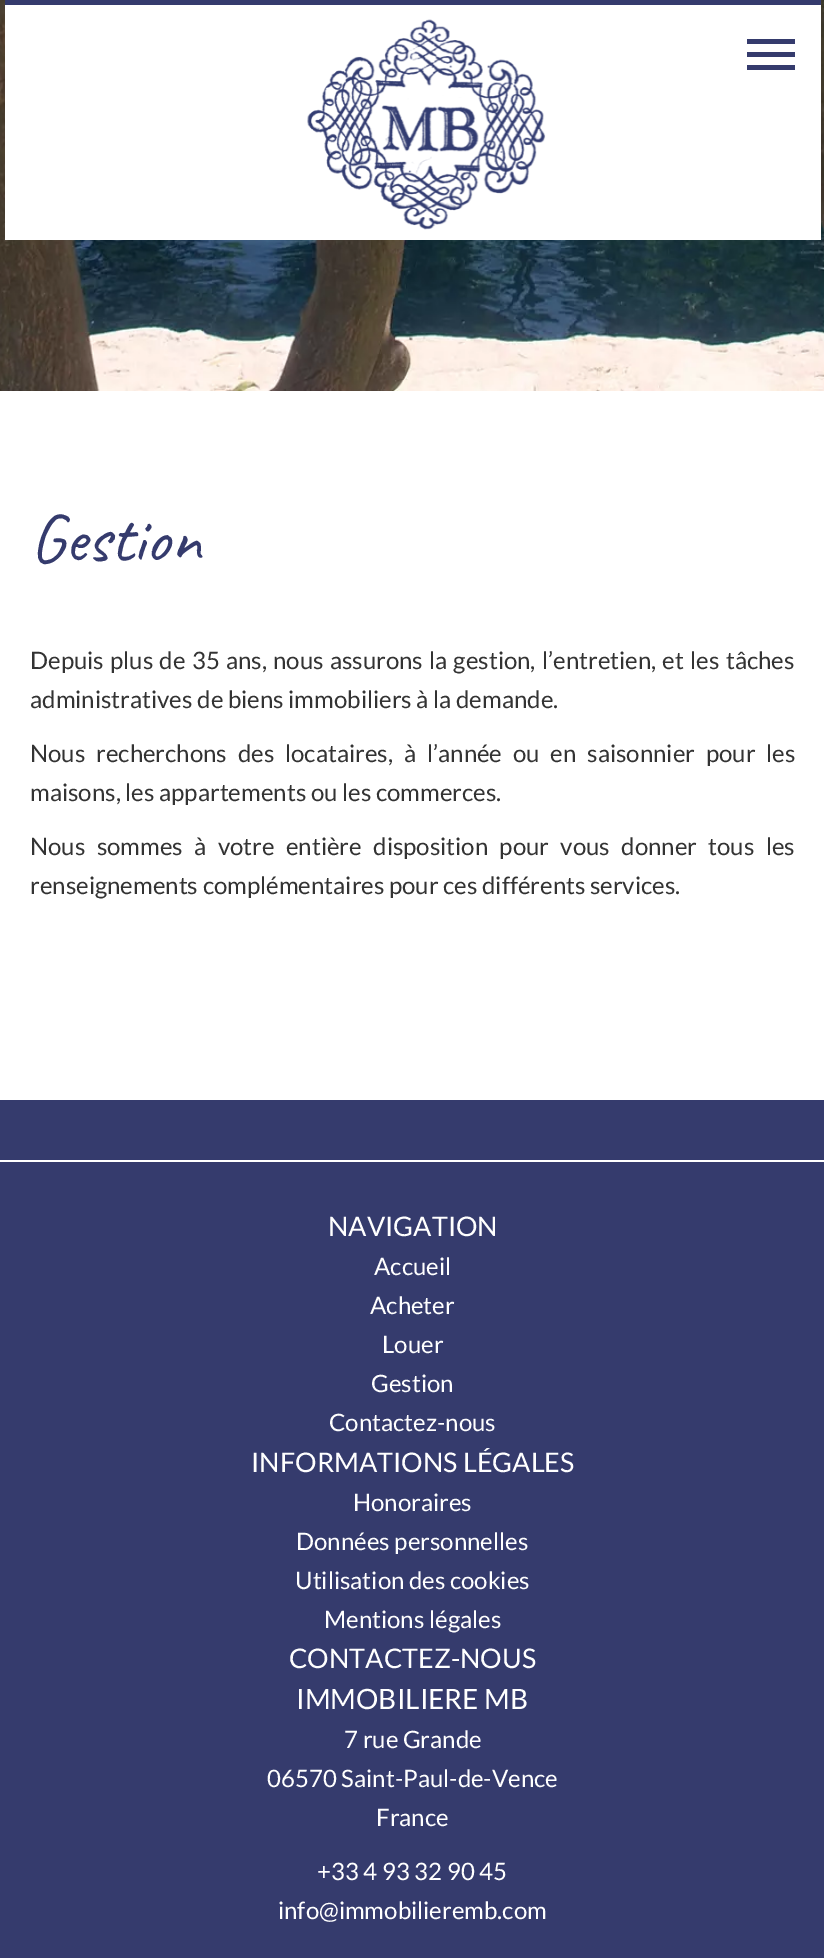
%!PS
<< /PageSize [824 1958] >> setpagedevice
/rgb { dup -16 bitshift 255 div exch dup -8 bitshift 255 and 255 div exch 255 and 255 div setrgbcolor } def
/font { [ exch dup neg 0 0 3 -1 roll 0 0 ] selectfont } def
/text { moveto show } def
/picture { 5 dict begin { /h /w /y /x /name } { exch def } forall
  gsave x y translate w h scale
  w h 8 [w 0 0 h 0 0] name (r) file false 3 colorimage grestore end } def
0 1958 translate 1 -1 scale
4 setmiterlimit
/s1 { /Caveat-Regular 69 font 16#353B6D rgb } def
/s2 { /Lato-Regular 24 font 16#333333 rgb } def
/s3 { /Lato-Regular 27 font 16#FFFFFF rgb } def
/s4 { /Lato-Regular 24 font 16#FFFFFF rgb } def
/s5 { /Lato-Regular 28 font 16#FFFFFF rgb } def
16#FFFFFF rgb
0 0 824 1958 rectfill
(pic2.raw) 0 0 824 391 picture
5 5 816 235 rectfill
16#353B6D rgb
5 0 816 5 rectfill
(pic1.raw) 307 19 239 211 picture
747 39 moveto 795 39 lineto 795 44 lineto 747 44 lineto closepath 747 52 moveto 795 52 lineto 795 57 lineto 747 57 lineto closepath 747 65 moveto 795 65 lineto 795 70 lineto 747 70 lineto closepath fill
s1
(Gestion) 30 561 text
/Lato-Regular 24 font
16#333333 rgb
30 669 moveto 1.6 0 32 (Depuis plus de 35 ans, nous assurons la gestion, l’entretien, et les tâches) widthshow
(administratives de biens immobiliers à la demande.) 30 708 text
30 762 moveto 6.25 0 32 (Nous recherchons des locataires, à l’année ou en saisonnier pour les) widthshow
(maisons, les appartements ou les commerces.) 30 801 text
30 855 moveto 6.75 0 32 (Nous sommes à votre entière disposition pour vous donner tous les) widthshow
(renseignements complémentaires pour ces différents services.) 30 894 text
16#353B6D rgb
0 1100 824 858 rectfill
16#FFFFFF rgb
0 1160 824 2 rectfill
s3
(NAVIGATION) 328 1236 text
s4
(Accueil) 374 1275 text
(Acheter) 370 1314 text
(Louer) 382 1353 text
(Gestion) 371 1392 text
(Contactez-nous) 329 1431 text
s3
(INFORMATIONS LÉGALES) 251 1472 text
s4
(Honoraires) 353 1511 text
(Données personnelles) 296 1550 text
(Utilisation des cookies) 295 1589 text
(Mentions légales) 324 1628 text
s3
(CONTACTEZ-NOUS) 289 1668 text
s5
(IMMOBILIERE MB) 296 1709 text
s4
(7 rue Grande) 344 1748 text
(06570 Saint-Paul-de-Vence) 267 1787 text
(France) 376 1826 text
(+33 4 93 32 90 45) 317 1880 text
(info@immobilieremb.com) 278 1919 text
showpage
